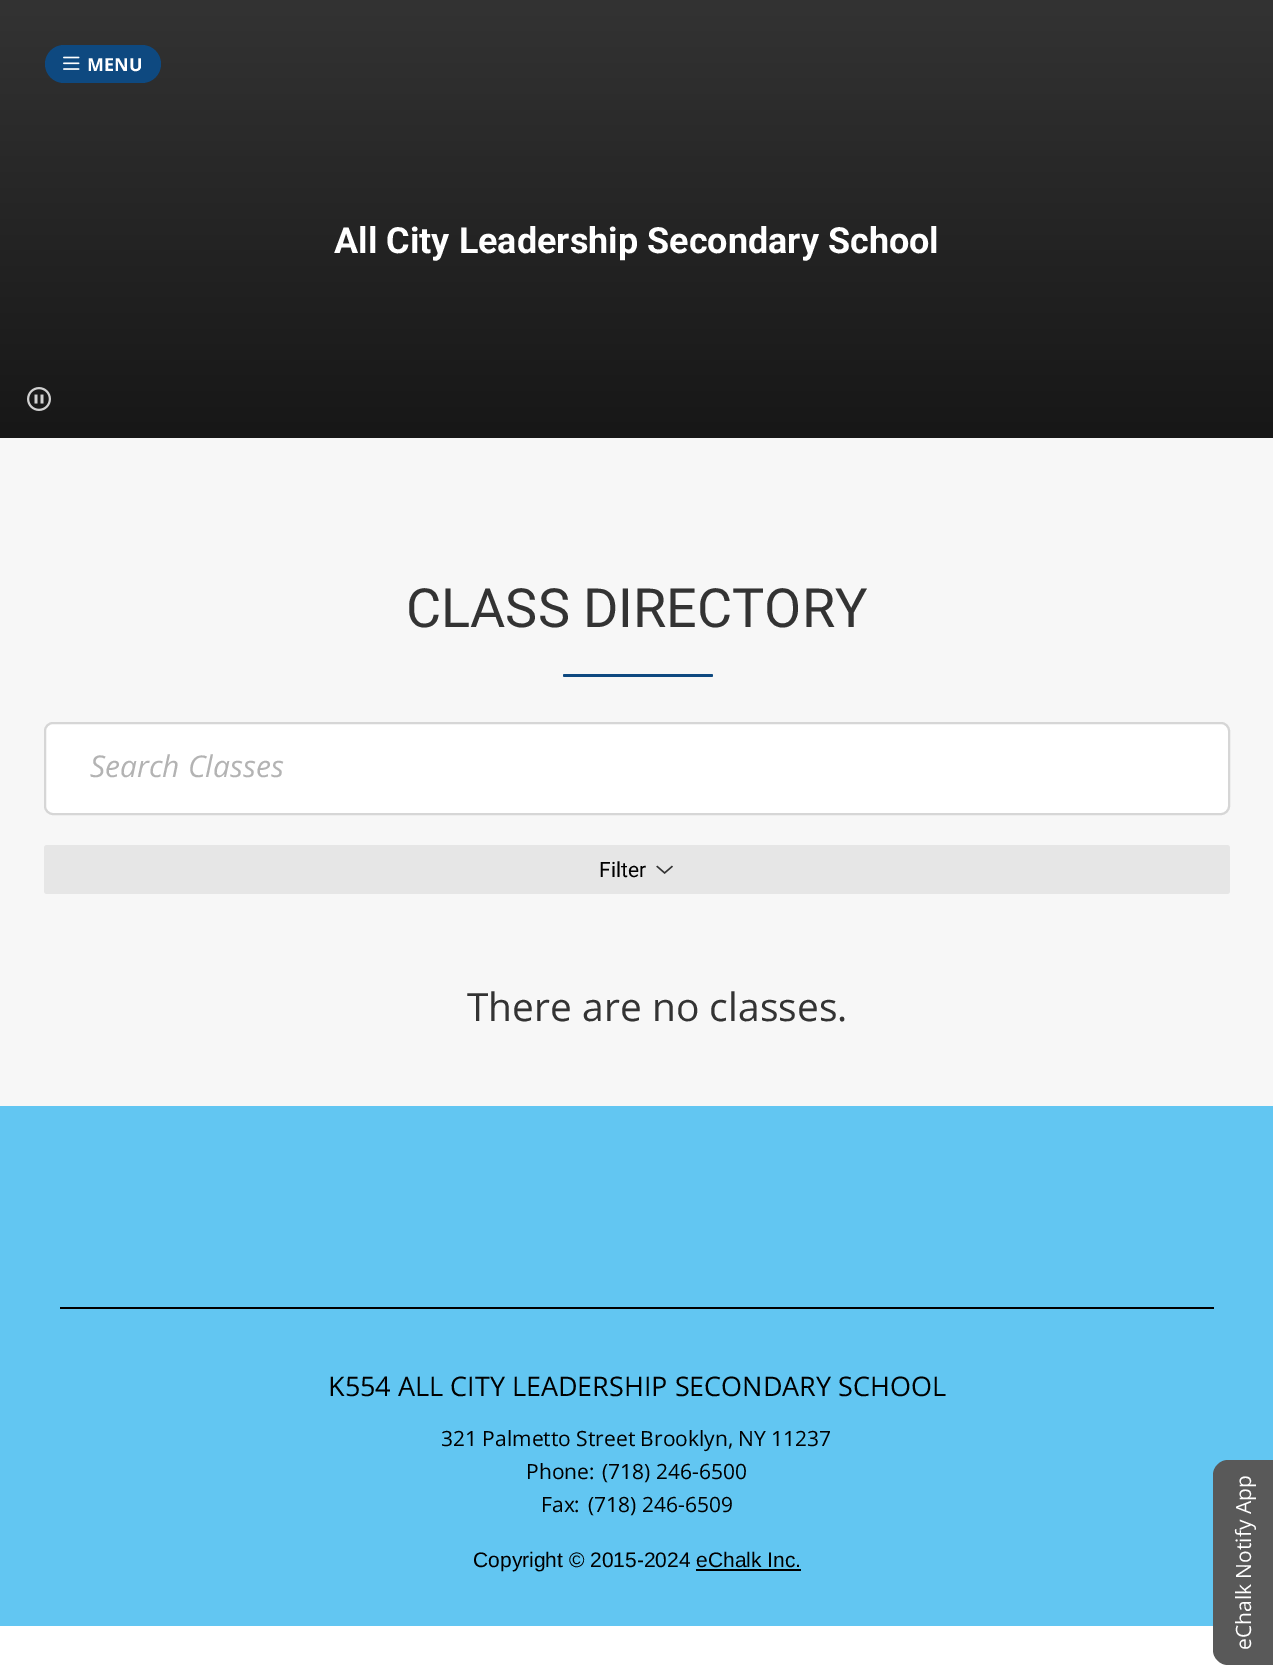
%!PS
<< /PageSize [1273 1680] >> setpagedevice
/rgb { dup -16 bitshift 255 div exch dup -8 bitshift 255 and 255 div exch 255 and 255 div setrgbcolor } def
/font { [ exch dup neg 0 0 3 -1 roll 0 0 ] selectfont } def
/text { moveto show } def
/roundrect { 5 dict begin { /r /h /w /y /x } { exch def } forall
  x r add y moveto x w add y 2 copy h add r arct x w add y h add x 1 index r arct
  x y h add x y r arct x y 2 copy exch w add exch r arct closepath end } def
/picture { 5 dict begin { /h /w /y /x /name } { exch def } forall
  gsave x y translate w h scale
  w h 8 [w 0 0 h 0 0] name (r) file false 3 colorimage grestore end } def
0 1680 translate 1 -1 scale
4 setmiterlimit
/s1 { /OpenSans-Bold 18 font 16#FFFFFF rgb } def
/s2 { /Roboto-Bold 36 font 16#FFFFFF rgb } def
/s3 { /Roboto-Regular 54 font 16#333333 rgb } def
/s4 { /OpenSans-Italic 30 font 16#B3B3B3 rgb } def
/s5 { /Roboto-Regular 21 font 16#000000 rgb } def
/s6 { /OpenSans-Regular 39 font 16#333333 rgb } def
/s7 { /OpenSans-Regular 27 font 16#000000 rgb } def
/s8 { /OpenSans-Regular 21 font 16#000000 rgb } def
/s9 { /LiberationSans-Regular 21 font 16#000000 rgb } def
16#FFFFFF rgb
0 0 1273 1680 rectfill
gsave 0 0 moveto 1273 0 lineto 1273 438 lineto 0 438 lineto closepath clip newpath
<< /ShadingType 2 /ColorSpace /DeviceRGB /Coords [637 0 637 438] /Extend [true true] /Function << /FunctionType 2 /Domain [0 1] /C0 [0.2 0.2 0.2] /C1 [0.09 0.09 0.09] /N 1 >> >> shfill grestore
16#0E4980 rgb
45 45 116 38 19 roundrect fill
(pic1.raw) 63 56 17 14 picture
s1
(MENU) 87 71 text
s2
(All City Leadership Secondary School) 334 253 text
(pic2.raw) 27 387 24 24 picture
16#F7F7F7 rgb
0 438 1273 668 rectfill
s3
(CLASS DIRECTORY) 406 627 text
16#0E4980 rgb
563 674 150 3 1.5 roundrect fill
16#FFFFFF rgb
45 723 1184 91 8 roundrect gsave fill grestore
16#D6D6D6 rgb
2 setlinewidth
stroke
s4
(Search Classes) 90 777 text
16#E6E6E6 rgb
44 845 1186 49 3 roundrect fill
s5
(Filter) 599 877 text
(pic3.raw) 656 865 17 9 picture
s6
(There are no classes.) 467 1021 text
16#62C6F2 rgb
0 1106 1273 520 rectfill
16#000000 rgb
60 1307 1154 2 rectfill
s7
(K554 ALL CITY LEADERSHIP SECONDARY SCHOOL) 328 1396 text
s8
(321 Palmetto Street Brooklyn, NY 11237) 441 1446 text
(Phone:) 526 1479 text
(\(718\) 246-6500) 602 1479 text
(Fax:) 541 1512 text
(\(718\) 246-6509) 588 1512 text
s9
(Copyright © 2015-2024 eChalk Inc.) 473 1567 text
696 1569 105 2 rectfill
16#595959 rgb
1213 1650 moveto 1213 1475 lineto 1213 1467 1220 1460 1228 1460 curveto 1273 1460 lineto 1273 1665 lineto 1228 1665 lineto 1220 1665 1213 1658 1213 1650 curveto closepath fill
/OpenSans-Regular 21 font
16#FFFFFF rgb
gsave 1251 1650 translate -90 rotate 0 0 moveto (eChalk Notify App) show grestore
showpage
